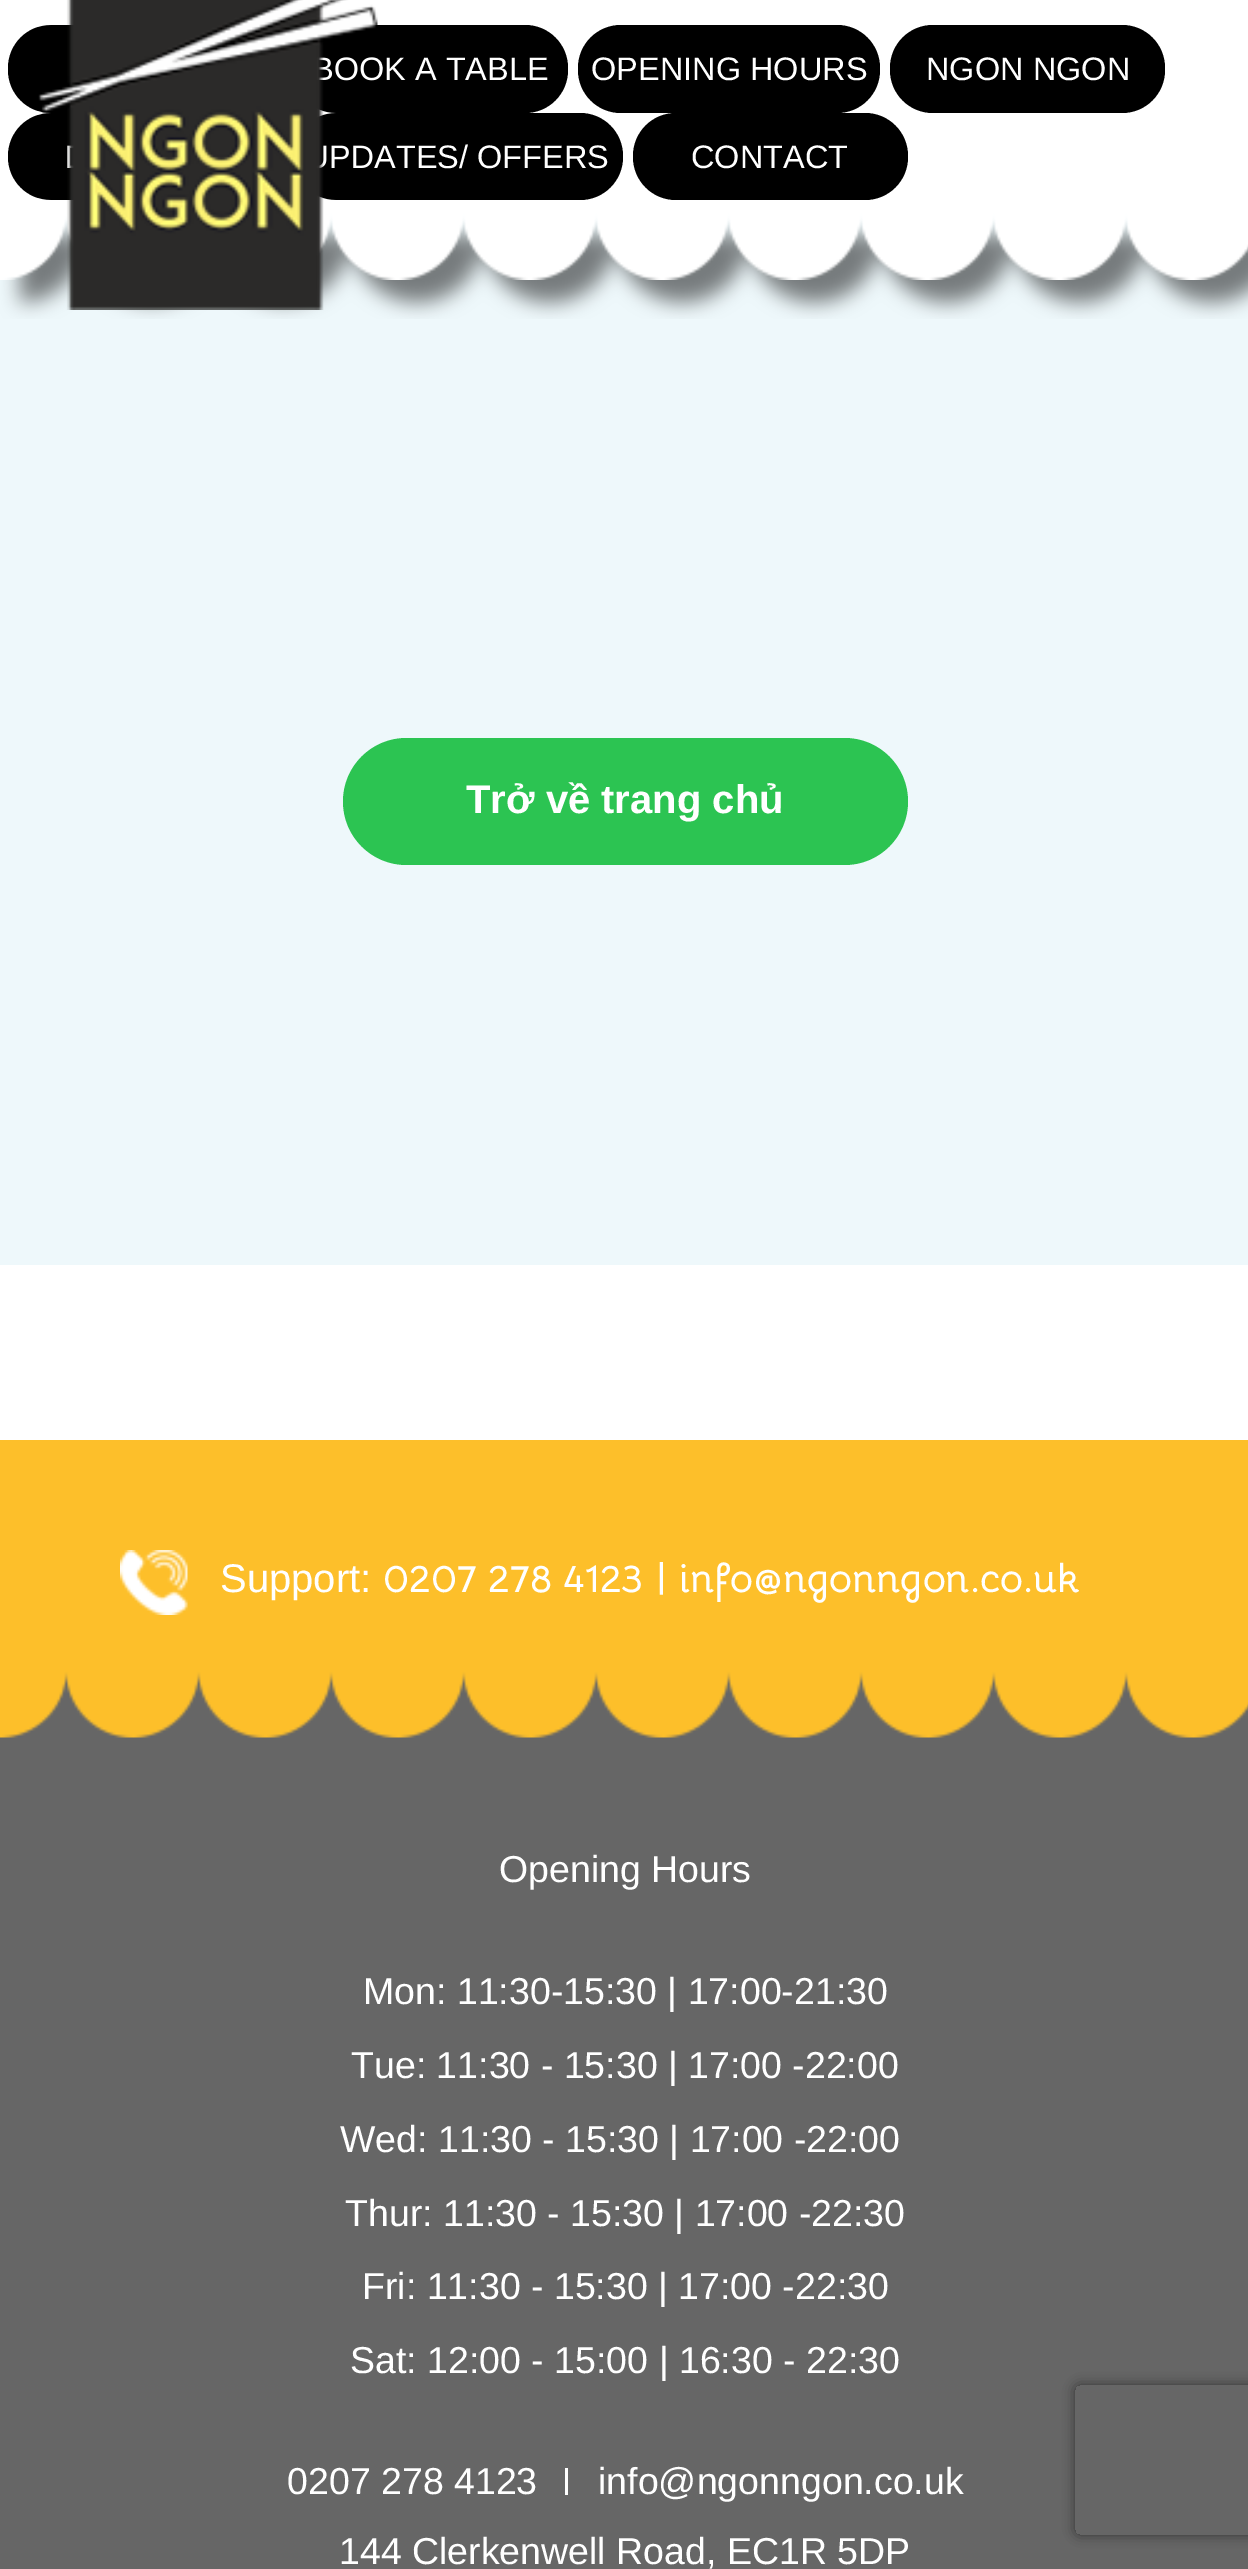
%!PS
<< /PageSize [1248 2569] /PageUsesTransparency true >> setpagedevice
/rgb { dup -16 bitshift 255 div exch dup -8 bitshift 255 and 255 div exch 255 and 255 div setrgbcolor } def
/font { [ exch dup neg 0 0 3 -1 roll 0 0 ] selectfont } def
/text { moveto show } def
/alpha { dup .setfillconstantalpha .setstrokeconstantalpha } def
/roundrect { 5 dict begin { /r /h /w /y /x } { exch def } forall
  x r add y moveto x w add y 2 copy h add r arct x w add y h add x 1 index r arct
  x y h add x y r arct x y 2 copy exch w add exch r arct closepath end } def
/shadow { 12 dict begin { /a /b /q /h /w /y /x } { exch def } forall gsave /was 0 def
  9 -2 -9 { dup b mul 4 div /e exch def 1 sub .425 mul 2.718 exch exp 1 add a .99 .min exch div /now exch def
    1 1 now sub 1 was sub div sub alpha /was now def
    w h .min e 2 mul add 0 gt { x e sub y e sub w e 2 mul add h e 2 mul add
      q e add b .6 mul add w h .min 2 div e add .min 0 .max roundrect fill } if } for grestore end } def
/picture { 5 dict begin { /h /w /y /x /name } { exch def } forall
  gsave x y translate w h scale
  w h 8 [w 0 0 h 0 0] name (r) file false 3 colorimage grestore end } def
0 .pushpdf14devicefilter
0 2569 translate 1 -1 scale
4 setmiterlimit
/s1 { /LiberationSans-Regular 32.5 font 16#FFFFFF rgb } def
/s2 { /LiberationSans-Bold 40 font 16#FFFFFF rgb } def
/s3 { /LiberationSans-Regular 40 font 16#FFFFFF rgb } def
/s4 { /Bellota-Bold 40 font 16#FFFFFF rgb } def
/s5 { /LiberationSans-Regular 37.5 font 16#FFFFFF rgb } def
16#FFFFFF rgb
0 0 1248 2569 rectfill
16#666666 rgb
0 1671 1248 898 rectfill
16#000000 rgb
8 25 275 88 43 roundrect fill
293 25 275 88 43 roundrect fill
s1
(BOOK A TABLE) 312 80 text
16#000000 rgb
8 113 275 87 43 roundrect fill
293 113 330 87 43 roundrect fill
s1
(PDATES/ OFFERS) 329 168 text
16#EEF8FB rgb
0 213 1248 1052 rectfill
(pic2.raw) 0 213 1248 106 picture
(pic1.raw) 38 0 340 310 picture
16#000000 rgb
578 25 302 88 43 roundrect fill
s1
(OPENING HOURS) 591 80 text
16#000000 rgb
890 25 275 88 43 roundrect fill
s1
(NGON NGON) 926 80 text
16#000000 rgb
633 113 275 87 43 roundrect fill
s1
(CONTACT) 691 168 text
16#2CC452 rgb
343 738 565 127 63.5 roundrect fill
s2
(Trở về trang chủ) 466 813 text
16#FDBF2A rgb
0 1440 1248 230 rectfill
(pic3.raw) 120 1550 68 65 picture
s3
(Support:) 220 1592 text
s4
(0207 278 4123 | info@ngonngon.co.uk) 383 1592 text
(pic4.raw) 0 1670 1248 68 picture
s5
(Opening Hours) 499 1882 text
(Mon: 11:30-15:30 | 17:00-21:30) 363 2004 text
(Tue: 11:30 - 15:30 | 17:00 -22:00) 351 2078 text
(Wed: 11:30 - 15:30 | 17:00 -22:00) 340 2152 text
(Thur: 11:30 - 15:30 | 17:00 -22:30) 345 2226 text
(Fri: 11:30 - 15:30 | 17:00 -22:30) 362 2299 text
(Sat: 12:00 - 15:00 | 16:30 - 22:30) 350 2373 text
(0207 278 4123) 287 2494 text
565 2468 3 27 rectfill
(info@ngonngon.co.uk) 598 2494 text
(144 Clerkenwell Road, EC1R 5DP) 339 2564 text
gsave
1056 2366 moveto 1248 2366 lineto 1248 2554 lineto 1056 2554 lineto closepath 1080 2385 moveto 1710 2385 lineto 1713 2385 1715 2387 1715 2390 curveto 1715 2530 lineto 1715 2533 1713 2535 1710 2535 curveto 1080 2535 lineto 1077 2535 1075 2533 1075 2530 curveto 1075 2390 lineto 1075 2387 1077 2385 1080 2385 curveto closepath eoclip newpath
16#333333 rgb
1075 2385 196 150 5 6 1 shadow
grestore
.poppdf14devicefilter showpage
